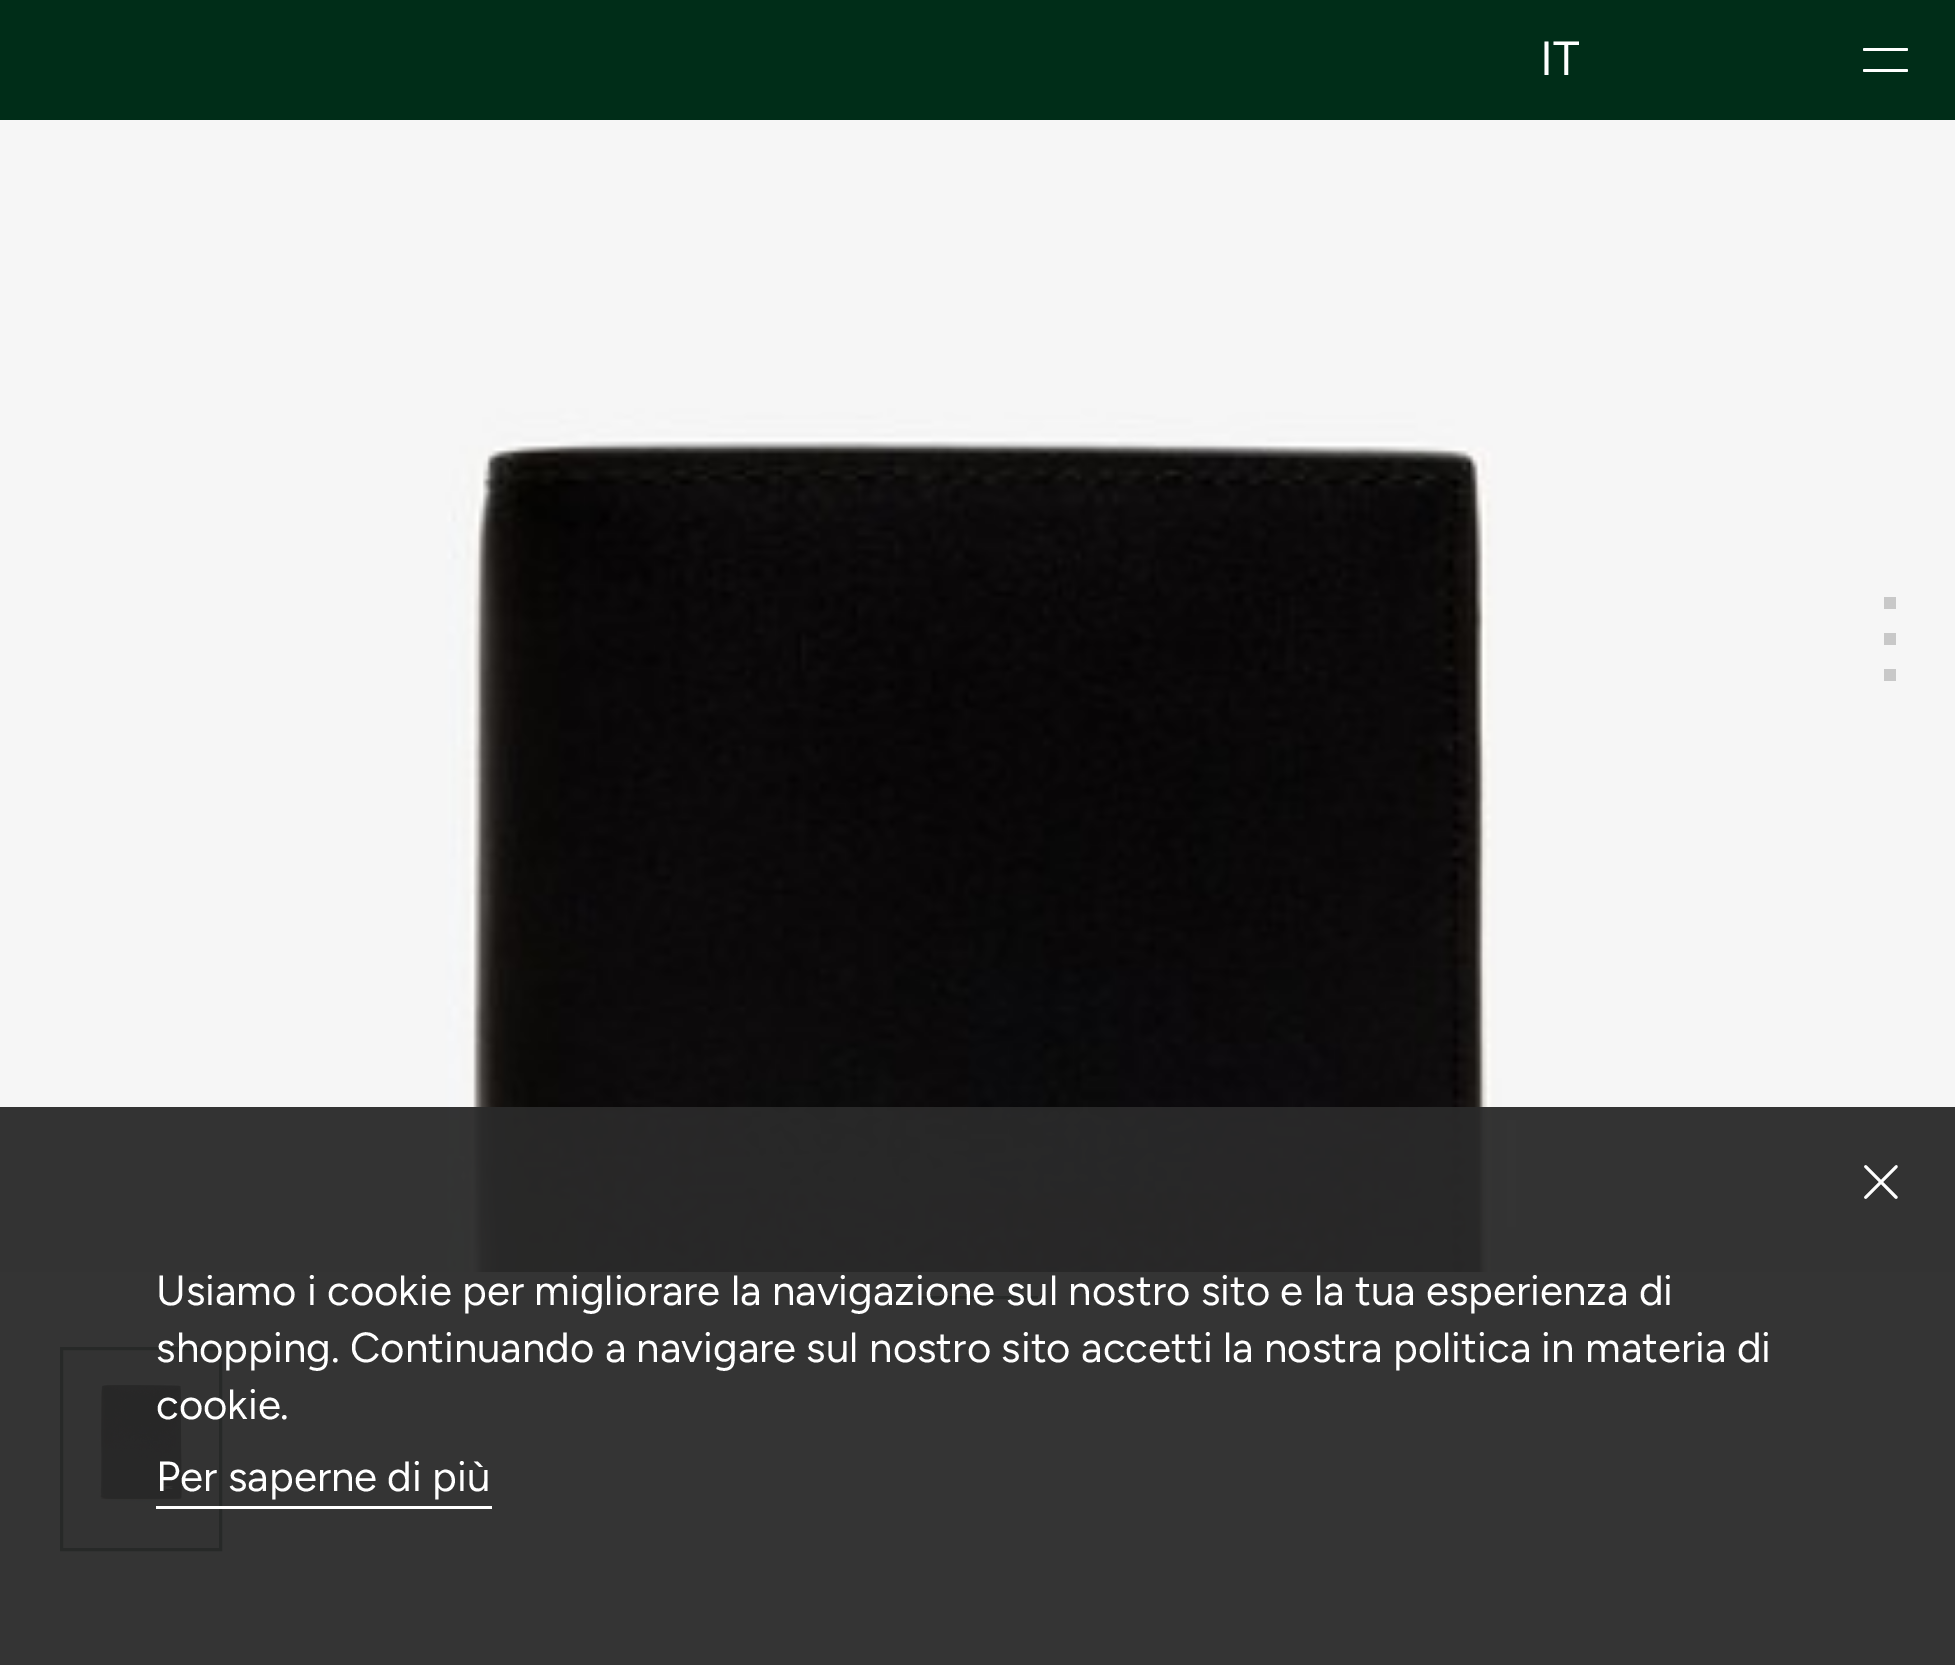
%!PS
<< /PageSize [1955 1665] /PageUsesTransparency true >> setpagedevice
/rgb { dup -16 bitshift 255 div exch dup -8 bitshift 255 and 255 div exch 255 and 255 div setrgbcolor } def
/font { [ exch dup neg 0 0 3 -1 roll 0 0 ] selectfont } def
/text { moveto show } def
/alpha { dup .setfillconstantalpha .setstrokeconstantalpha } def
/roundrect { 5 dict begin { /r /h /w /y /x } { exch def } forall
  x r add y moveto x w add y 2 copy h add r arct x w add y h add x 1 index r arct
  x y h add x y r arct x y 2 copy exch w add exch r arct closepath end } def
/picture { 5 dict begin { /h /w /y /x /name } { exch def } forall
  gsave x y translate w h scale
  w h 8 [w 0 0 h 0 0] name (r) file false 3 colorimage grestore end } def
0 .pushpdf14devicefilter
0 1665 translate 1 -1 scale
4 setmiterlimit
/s1 { /Figtree-Regular 48 font 16#FFFFFF rgb } def
/s2 { /Figtree-Regular 42 font 16#FFFFFF rgb } def
16#FFFFFF rgb
0 0 1955 1665 rectfill
16#002D18 rgb
0 0 1955 120 rectfill
s1
(IT) 1540 75 text
1863 48 45 3 1.5 roundrect fill
1863 69 45 3 1.5 roundrect fill
(pic1.raw) 0 120 1955 1152 picture
16#C8C8C8 rgb
1884 597 12 12 rectfill
1884 633 12 12 rectfill
1884 669 12 12 rectfill
16#002D18 rgb
918 1296 120 3 rectfill
16#F4F4F4 rgb
61.5 1348.5 moveto 220.5 1348.5 lineto 220.5 1549.5 lineto 61.5 1549.5 lineto closepath gsave fill grestore
16#002D18 rgb
3 setlinewidth
stroke
(pic2.raw) 94 1384 96 121 picture
0.95 alpha
16#292929 rgb
0 1107 1955 558 rectfill
1 alpha
(pic3.raw) 1864 1165 34 34 picture
s2
(Usiamo i cookie per migliorare la navigazione sul nostro sito e la tua esperienza di) 156 1305 text
(shopping. Continuando a navigare sul nostro sito accetti la nostra politica in materia di) 156 1362 text
(cookie.) 156 1419 text
(Per saperne di più) 156 1491 text
156 1506 336 3 rectfill
.poppdf14devicefilter showpage
